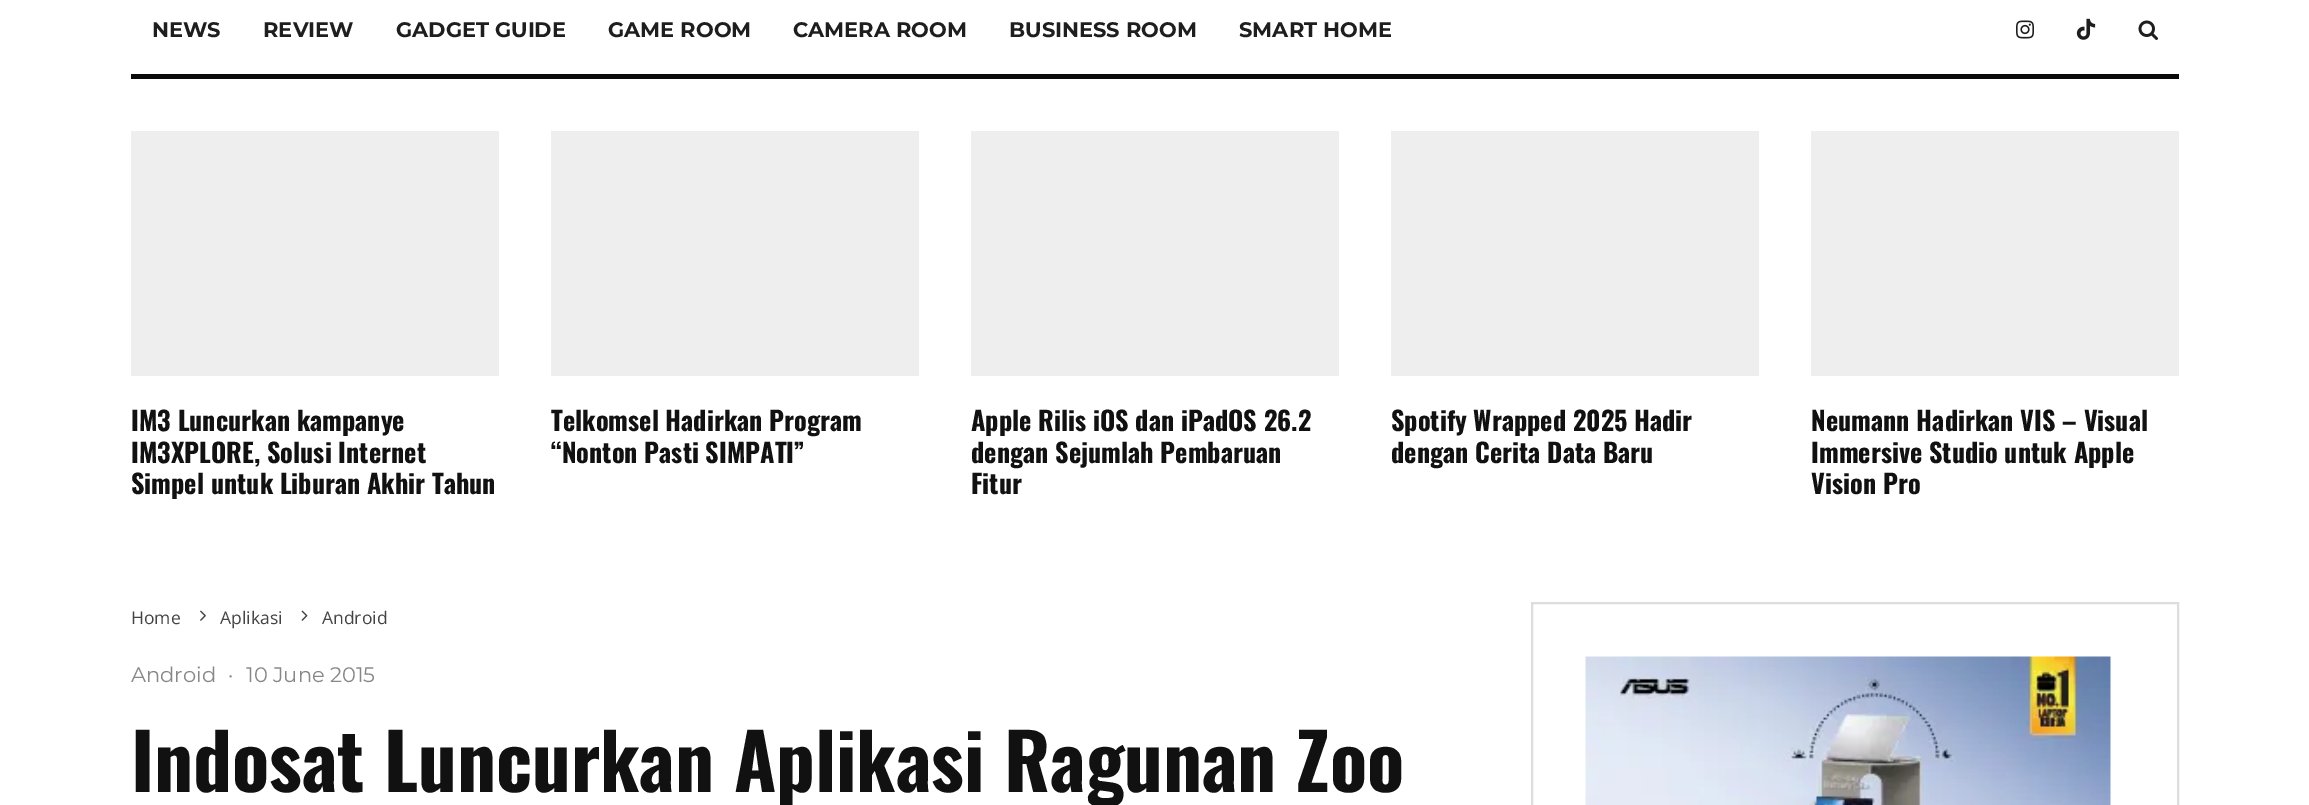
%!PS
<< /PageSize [2309 805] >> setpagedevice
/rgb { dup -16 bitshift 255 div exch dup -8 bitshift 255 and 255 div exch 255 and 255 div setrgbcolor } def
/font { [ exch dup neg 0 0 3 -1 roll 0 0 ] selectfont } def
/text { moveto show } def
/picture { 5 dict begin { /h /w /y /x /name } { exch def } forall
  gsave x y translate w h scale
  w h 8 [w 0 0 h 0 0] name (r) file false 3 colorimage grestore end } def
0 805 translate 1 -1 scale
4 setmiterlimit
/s1 { /Montserrat-Bold 21 font 16#1E1E1E rgb } def
/s2 { /Oswald-Bold 26.25 font 16#111111 rgb } def
/s3 { /OpenSans-Regular 17.5 font 16#444444 rgb } def
/s4 { /Montserrat-Regular 21 font 16#888888 rgb } def
/s5 { /Oswald-Bold 77 font 16#111111 rgb } def
16#FFFFFF rgb
0 0 2309 805 rectfill
16#0A0A0A rgb
131 74 2048 5 rectfill
s1
(NEWS) 152 37 text
(REVIEW) 263 37 text
(GADGET GUIDE) 396 37 text
(GAME ROOM) 608 37 text
(CAMERA ROOM) 793 37 text
(BUSINESS ROOM) 1009 37 text
(SMART HOME) 1239 37 text
(pic1.raw) 2016 20 18 19 picture
(pic2.raw) 2076 18 20 22 picture
(pic3.raw) 2138 20 20 20 picture
16#EEEEEE rgb
131 131 368 245 rectfill
s2
(IM3 Luncurkan kampanye) 131 431 text
(IM3XPLORE, Solusi Internet) 131 463 text
(Simpel untuk Liburan Akhir Tahun) 131 494 text
16#EEEEEE rgb
551 131 368 245 rectfill
s2
(Telkomsel Hadirkan Program) 551 431 text
(“Nonton Pasti SIMPATI”) 551 463 text
16#EEEEEE rgb
971 131 368 245 rectfill
s2
(Apple Rilis iOS dan iPadOS 26.2) 971 431 text
(dengan Sejumlah Pembaruan) 971 463 text
(Fitur) 971 494 text
16#EEEEEE rgb
1391 131 368 245 rectfill
s2
(Spotify Wrapped 2025 Hadir) 1391 431 text
(dengan Cerita Data Baru) 1391 463 text
16#EEEEEE rgb
1811 131 368 245 rectfill
s2
(Neumann Hadirkan VIS – Visual) 1811 431 text
(Immersive Studio untuk Apple) 1811 463 text
(Vision Pro) 1811 494 text
s3
(Home) 131 624 text
(pic4.raw) 200 610 6 11 picture
(Aplikasi) 220 624 text
(pic5.raw) 301 610 7 11 picture
(Android) 322 624 text
s4
(Android) 131 682 text
(·) 228 682 text
(10 June 2015) 246 682 text
s5
(Indosat Luncurkan Aplikasi Ragunan Zoo) 131 792 text
16#DDDDDD rgb
2 setlinewidth
1532 603 646 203 rectstroke
(pic6.raw) 1585 656 526 149 picture
showpage
